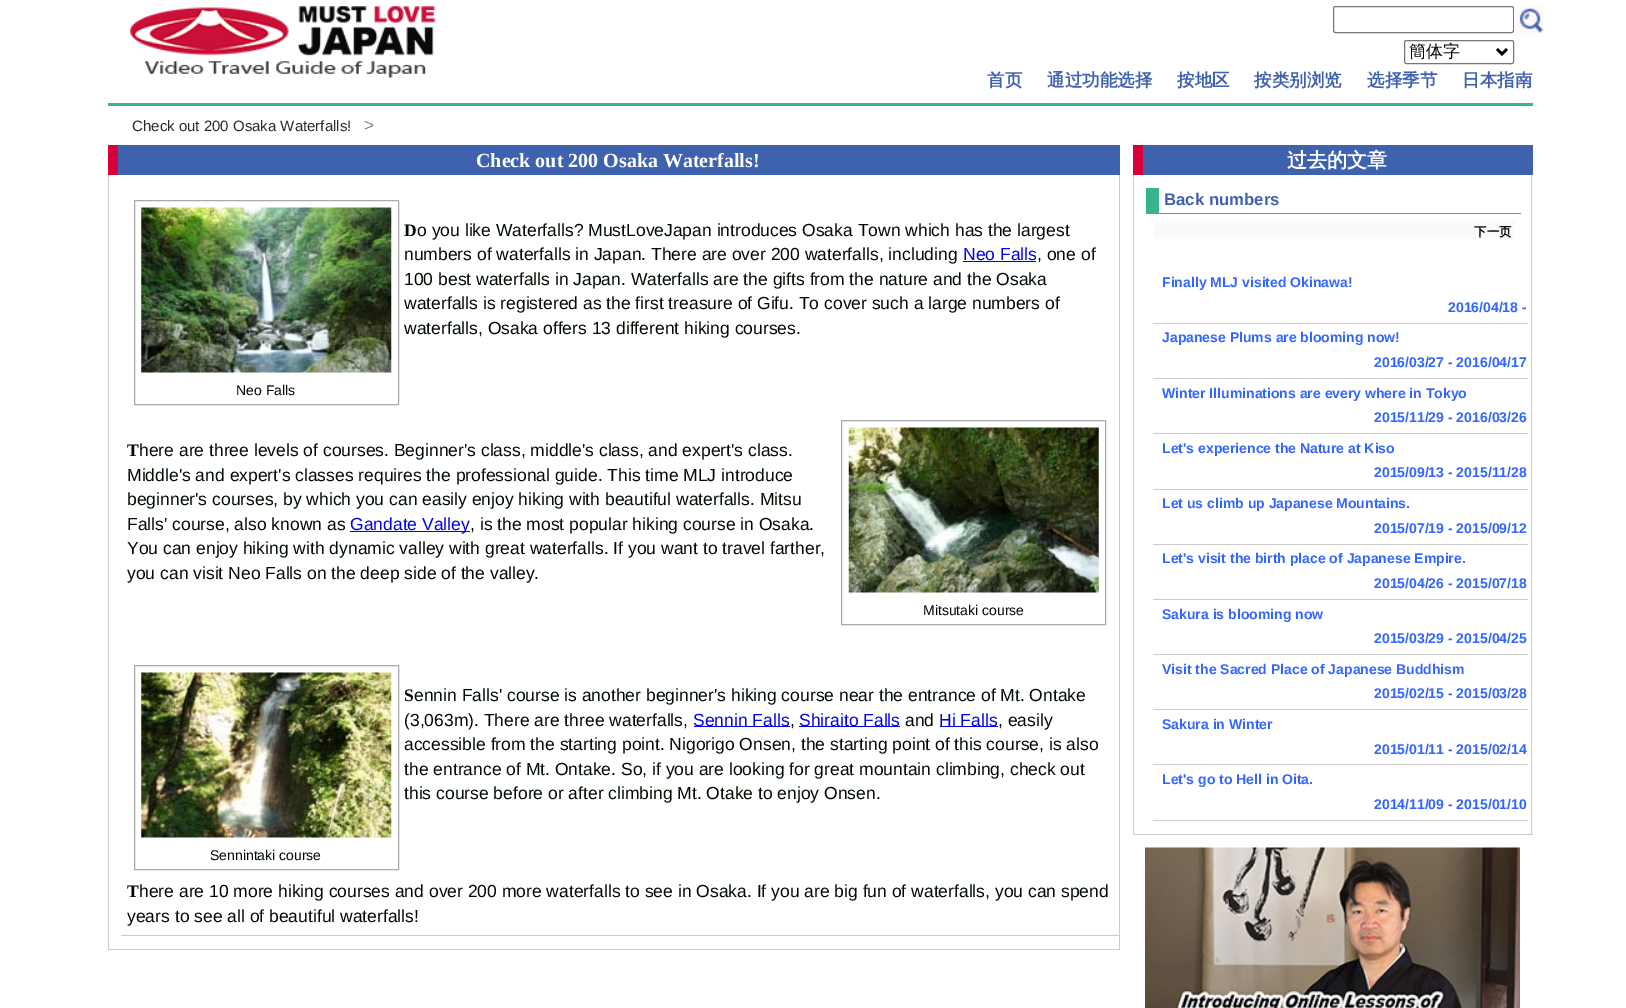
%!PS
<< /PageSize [1626 1008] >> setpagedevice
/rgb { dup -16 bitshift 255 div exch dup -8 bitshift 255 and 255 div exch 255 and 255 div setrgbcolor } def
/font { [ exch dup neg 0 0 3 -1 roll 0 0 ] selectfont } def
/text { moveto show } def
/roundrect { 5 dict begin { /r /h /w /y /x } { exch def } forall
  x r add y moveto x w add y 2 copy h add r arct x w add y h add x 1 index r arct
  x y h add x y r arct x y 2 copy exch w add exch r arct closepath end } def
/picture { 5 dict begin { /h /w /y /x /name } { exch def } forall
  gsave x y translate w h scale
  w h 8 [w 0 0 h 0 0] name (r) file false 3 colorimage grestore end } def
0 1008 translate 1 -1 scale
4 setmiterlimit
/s1 { /WenQuanYiZenHei-Medium 17 font 16#000000 rgb } def
/s2 { /WenQuanYiZenHei-Bold 17.5 font 16#3E62AD rgb } def
/s3 { /LiberationSans-Regular 15 font 16#2E2930 rgb } def
/s4 { /LiberationSans-Regular 17.5 font 16#888888 rgb } def
/s5 { /LiberationSerif-Bold 20 font 16#FFFFFF rgb } def
/s6 { /LiberationSerif-Bold 17.5 font 16#000B00 rgb } def
/s7 { /LiberationSans-Regular 17.5 font 16#000B00 rgb } def
/s8 { /LiberationSans-Regular 17.5 font 16#0000EE rgb } def
/s9 { /LiberationSans-Regular 14 font 16#000B00 rgb } def
/s10 { /WenQuanYiZenHei-Bold 20 font 16#FFFFFF rgb } def
/s11 { /LiberationSans-Bold 16.75 font 16#3E62AD rgb } def
/s12 { /WenQuanYiZenHei-Bold 12.5 font 16#000B00 rgb } def
/s13 { /LiberationSans-Bold 14 font 16#3366FF rgb } def
16#FFFFFF rgb
0 0 1626 1008 rectfill
16#38B48B rgb
108 103 1425 3 rectfill
(pic1.raw) 129 6 307 72 picture
16#767676 rgb
1333.5 6.5 180 26 2 roundrect stroke
(pic2.raw) 1514 6 31 28 picture
1404.5 40.5 109 23 2 roundrect stroke
16#000000 rgb
2.5 setlinewidth
1497 49 moveto 1502 54 lineto 1507 49 lineto stroke
s1
(簡体字) 1409 57 text
s2
(首页) 987 86 text
(通过功能选择) 1047 86 text
(按地区) 1177 86 text
(按类别浏览) 1254 86 text
(选择季节) 1367 86 text
(日本指南) 1462 86 text
s3
(Check out 200 Osaka Waterfalls!) 132 131 text
s4
(>) 364 131 text
16#3E62AD rgb
118 145 1002 30 rectfill
16#D7003A rgb
108 145 10 30 rectfill
s5
(Check out 200 Osaka Waterfalls!) 476 167 text
16#CCCCCC rgb
1119 175 1 775 rectfill
108 949 1012 1 rectfill
108 175 1 775 rectfill
121 935 998 1 rectfill
s6
(D) 404 236 text
s7
(o you like Waterfalls? MustLoveJapan introduces Osaka Town which has the largest) 417 236 text
(numbers of waterfalls in Japan. There are over 200 waterfalls, including) 404 260 text
s8
(Neo Falls) 963 260 text
963 261 73 1 rectfill
s7
(, one of) 1037 260 text
(100 best waterfalls in Japan. Waterfalls are the gifts from the nature and the Osaka) 404 285 text
(waterfalls is registered as the first treasure of Gifu. To cover such a large numbers of) 404 309 text
(waterfalls, Osaka offers 13 different hiking courses.) 404 334 text
16#AAAAAA rgb
1 setlinewidth
134.5 200.5 264 204 rectstroke
(pic3.raw) 141 207 251 166 picture
s9
(Neo Falls) 236 395 text
s6
(T) 127 456 text
s7
(here are three levels of courses. Beginner's class, middle's class, and expert's class.) 139 456 text
(Middle's and expert's classes requires the professional guide. This time MLJ introduce) 127 481 text
(beginner's courses, by which you can easily enjoy hiking with beautiful waterfalls. Mitsu) 127 505 text
(Falls' course, also known as) 127 530 text
16#0000EE rgb
350 531 120 1 rectfill
(Gandate Valley) 350 530 text
s7
(, is the most popular hiking course in Osaka.) 470 530 text
(You can enjoy hiking with dynamic valley with great waterfalls. If you want to travel farther,) 127 554 text
(you can visit Neo Falls on the deep side of the valley.) 127 579 text
16#AAAAAA rgb
841.5 420.5 264 204 rectstroke
(pic4.raw) 848 427 251 166 picture
s9
(Mitsutaki course) 923 615 text
s6
(S) 404 701 text
s7
(ennin Falls' course is another beginner's hiking course near the entrance of Mt. Ontake) 414 701 text
(\(3,063m\). There are three waterfalls,) 404 726 text
16#0000EE rgb
694 726 96 1 rectfill
(Sennin Falls) 693 726 text
s7
(,) 790 726 text
16#0000EE rgb
799 726 101 1 rectfill
(Shiraito Falls) 799 726 text
s7
(and) 905 726 text
16#0000EE rgb
940 726 58 1 rectfill
(Hi Falls) 939 726 text
s7
(, easily) 998 726 text
(accessible from the starting point. Nigorigo Onsen, the starting point of this course, is also) 404 750 text
(the entrance of Mt. Ontake. So, if you are looking for great mountain climbing, check out) 404 775 text
(this course before or after climbing Mt. Otake to enjoy Onsen.) 404 799 text
16#AAAAAA rgb
134.5 665.5 264 204 rectstroke
(pic5.raw) 141 672 251 166 picture
s9
(Sennintaki course) 210 860 text
s6
(T) 127 897 text
s7
(here are 10 more hiking courses and over 200 more waterfalls to see in Osaka. If you are big fun of waterfalls, you can spend) 139 897 text
(years to see all of beautiful waterfalls!) 127 922 text
16#3E62AD rgb
1143 145 390 30 rectfill
16#D7003A rgb
1133 145 10 30 rectfill
s10
(过去的文章) 1287 167 text
16#CCCCCC rgb
1531 175 1 660 rectfill
1133 834 400 1 rectfill
1133 175 1 660 rectfill
16#38B48B rgb
1159 213 362 1 rectfill
1146 188 13 26 rectfill
s11
(Back numbers) 1164 205 text
16#FAFAFA rgb
1153 220 362 19 4 roundrect fill
s12
(下一页) 1474 236 text
16#CCCCCC rgb
1153 323 375 1 rectfill
s13
(Finally MLJ visited Okinawa!) 1162 287 text
(2016/04/18 -) 1448 312 text
16#CCCCCC rgb
1153 378 375 1 rectfill
s13
(Japanese Plums are blooming now!) 1162 342 text
(2016/03/27 - 2016/04/17) 1374 367 text
16#CCCCCC rgb
1153 433 375 1 rectfill
s13
(Winter Illuminations are every where in Tokyo) 1162 398 text
(2015/11/29 - 2016/03/26) 1374 422 text
16#CCCCCC rgb
1153 489 375 1 rectfill
s13
(Let's experience the Nature at Kiso) 1162 453 text
(2015/09/13 - 2015/11/28) 1374 477 text
16#CCCCCC rgb
1153 544 375 1 rectfill
s13
(Let us climb up Japanese Mountains.) 1162 508 text
(2015/07/19 - 2015/09/12) 1374 533 text
16#CCCCCC rgb
1153 599 375 1 rectfill
s13
(Let's visit the birth place of Japanese Empire.) 1162 563 text
(2015/04/26 - 2015/07/18) 1374 588 text
16#CCCCCC rgb
1153 654 375 1 rectfill
s13
(Sakura is blooming now) 1162 619 text
(2015/03/29 - 2015/04/25) 1374 643 text
16#CCCCCC rgb
1153 709 375 1 rectfill
s13
(Visit the Sacred Place of Japanese Buddhism) 1162 674 text
(2015/02/15 - 2015/03/28) 1374 698 text
16#CCCCCC rgb
1153 764 375 1 rectfill
s13
(Sakura in Winter) 1162 729 text
(2015/01/11 - 2015/02/14) 1374 754 text
16#CCCCCC rgb
1153 820 375 1 rectfill
s13
(Let's go to Hell in Oita.) 1162 784 text
(2014/11/09 - 2015/01/10) 1374 809 text
(pic6.raw) 1145 847 375 161 picture
showpage
